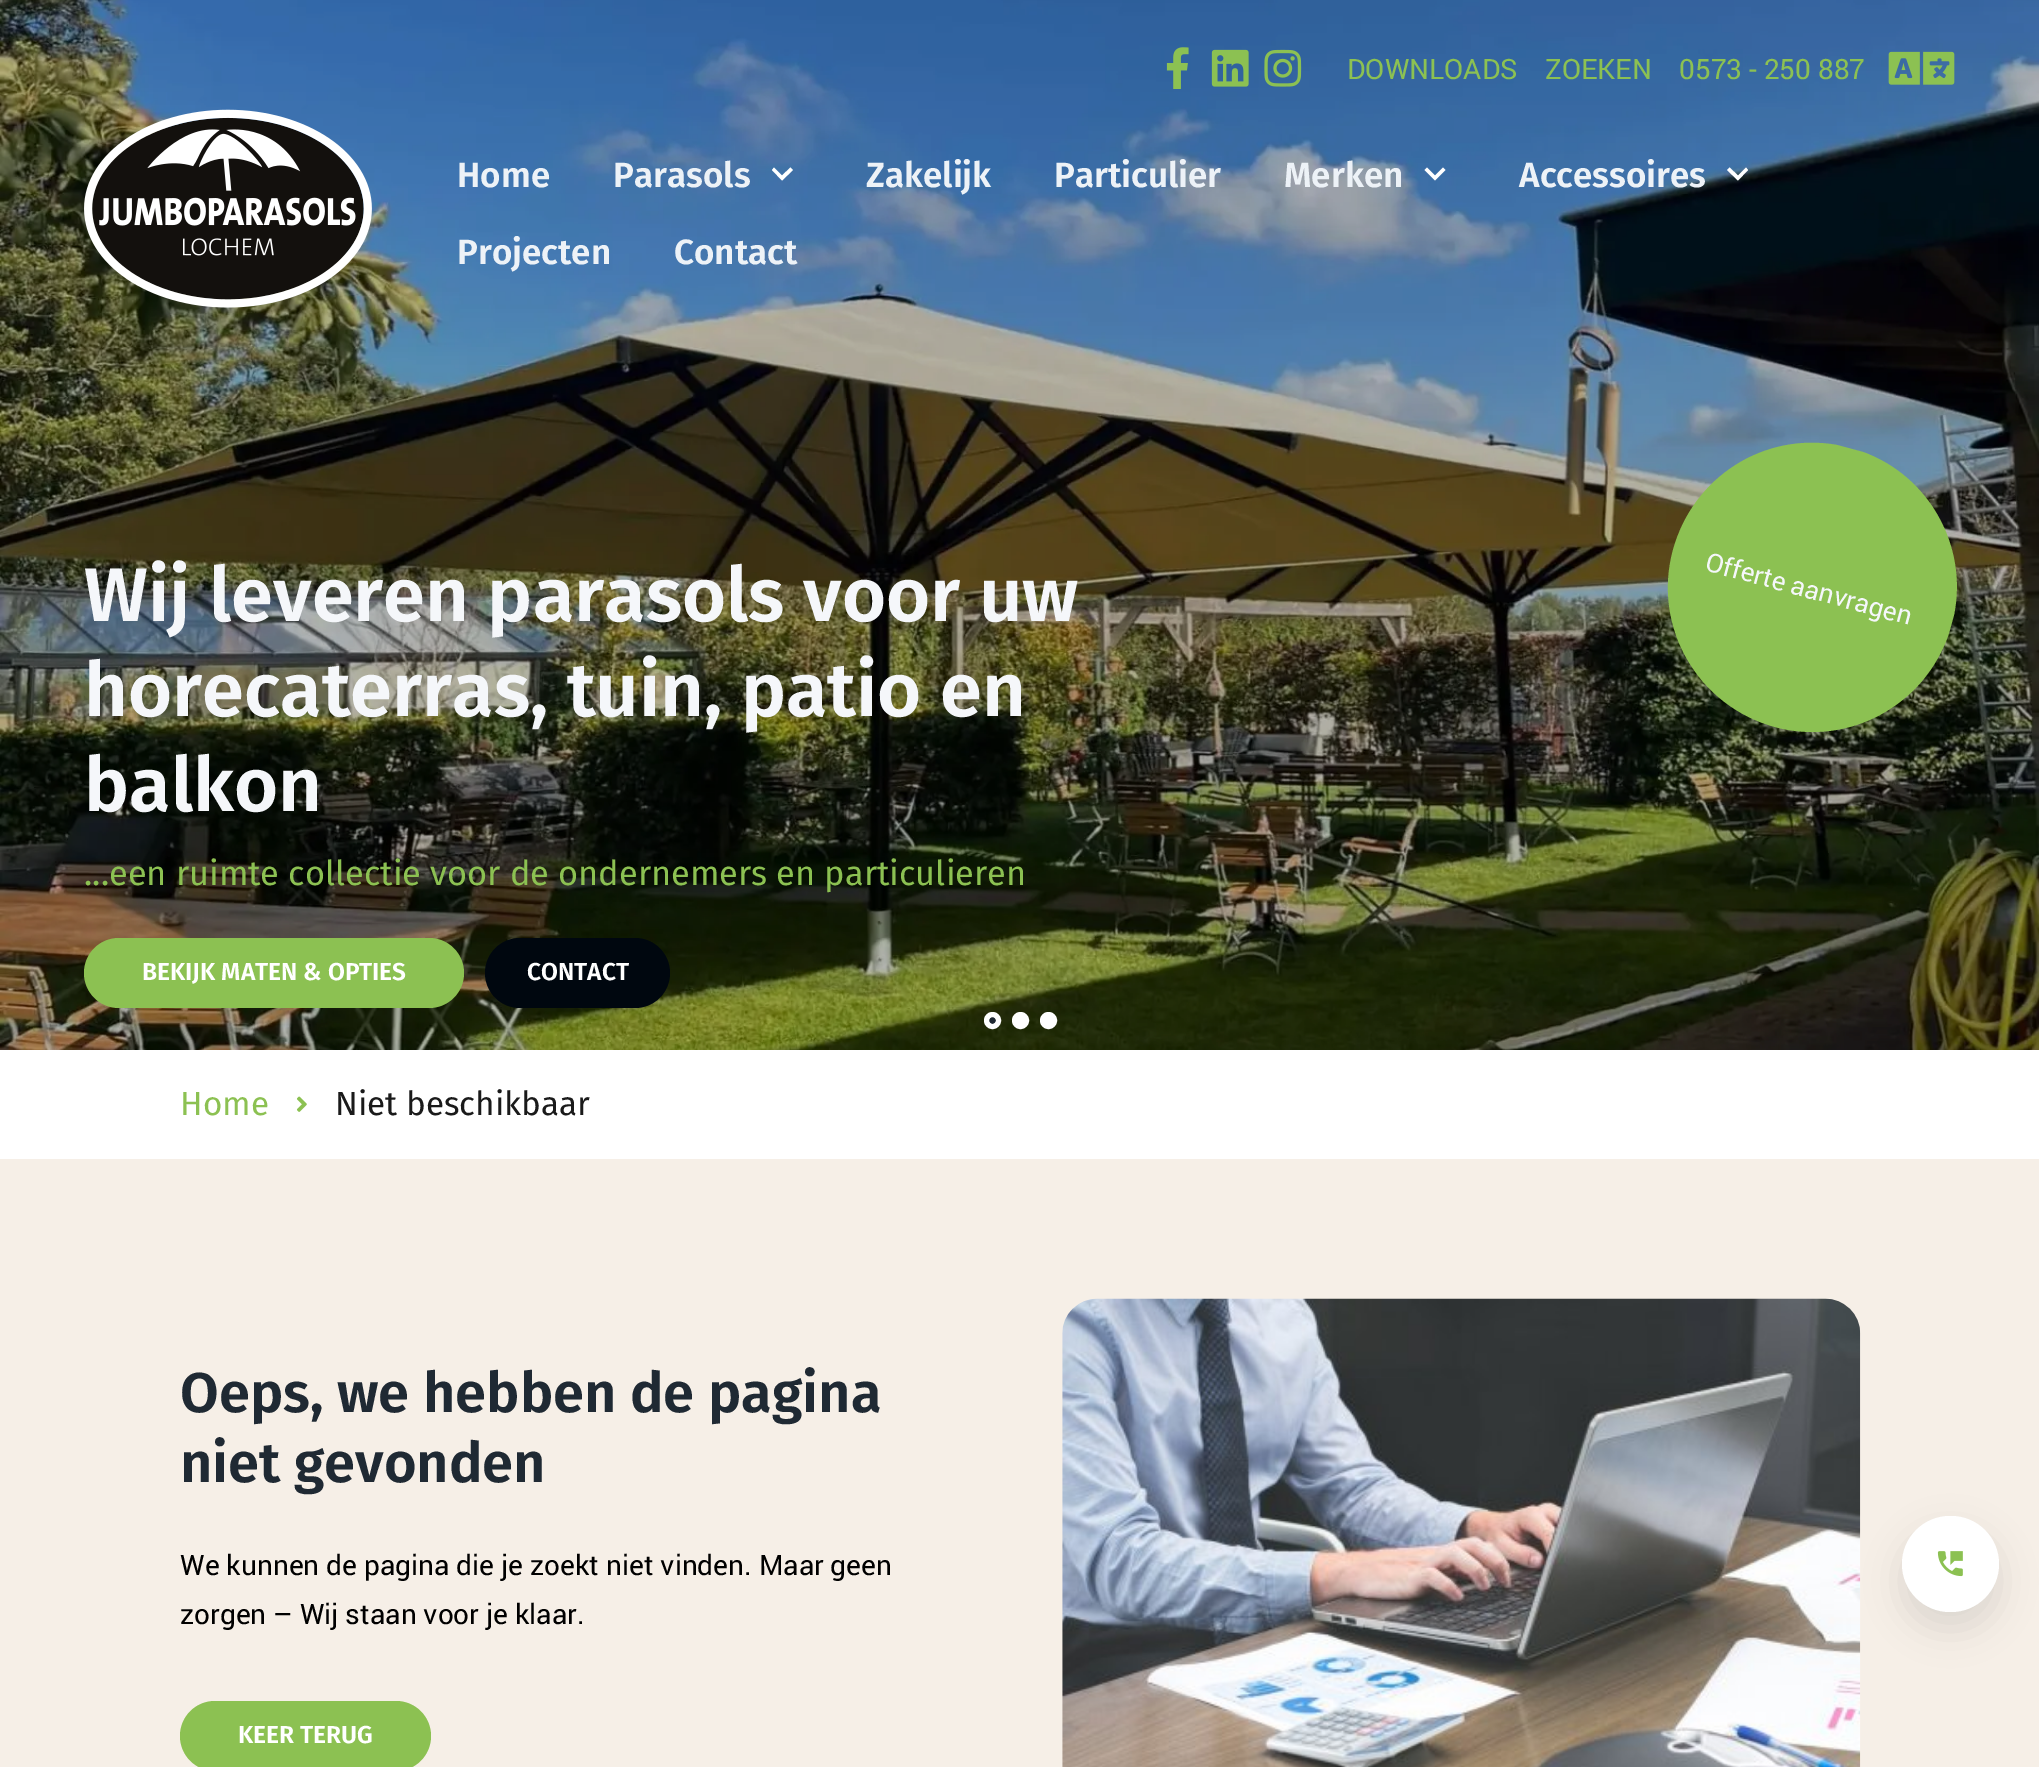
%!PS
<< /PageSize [2039 1767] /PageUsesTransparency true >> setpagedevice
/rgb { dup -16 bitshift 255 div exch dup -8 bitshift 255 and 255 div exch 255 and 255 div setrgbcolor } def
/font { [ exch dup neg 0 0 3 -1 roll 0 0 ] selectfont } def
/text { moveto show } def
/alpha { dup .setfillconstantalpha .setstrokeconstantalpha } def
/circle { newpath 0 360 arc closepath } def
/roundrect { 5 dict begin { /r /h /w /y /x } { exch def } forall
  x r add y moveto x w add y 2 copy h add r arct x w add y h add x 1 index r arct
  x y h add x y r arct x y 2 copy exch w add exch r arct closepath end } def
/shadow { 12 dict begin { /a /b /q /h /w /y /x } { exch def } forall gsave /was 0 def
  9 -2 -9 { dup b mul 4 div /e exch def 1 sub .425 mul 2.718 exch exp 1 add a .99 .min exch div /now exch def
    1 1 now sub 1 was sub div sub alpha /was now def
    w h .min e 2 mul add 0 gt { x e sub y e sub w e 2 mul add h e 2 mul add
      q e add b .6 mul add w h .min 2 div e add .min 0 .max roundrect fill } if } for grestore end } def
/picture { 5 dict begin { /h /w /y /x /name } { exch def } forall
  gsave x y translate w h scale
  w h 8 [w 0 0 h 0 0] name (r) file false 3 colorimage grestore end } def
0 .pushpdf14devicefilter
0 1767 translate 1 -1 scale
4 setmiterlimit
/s1 { /Roboto-Regular 28 font 16#8CC152 rgb } def
/s2 { /FiraSans-SemiBold 35 font 16#EDF2F7 rgb } def
/s3 { /FiraSans-SemiBold 75.75 font 16#F5F7FA rgb } def
/s4 { /FiraSans-Regular 34.4 font 16#8CC152 rgb } def
/s5 { /FiraSans-SemiBold 24.5 font 16#FFFFFF rgb } def
/s6 { /FiraSans-Regular 33.25 font 16#8CC152 rgb } def
/s7 { /FiraSans-Regular 33.25 font 16#1A1A1A rgb } def
/s8 { /FiraSans-SemiBold 56 font 16#1F2933 rgb } def
/s9 { /Roboto-Regular 28 font 16#000000 rgb } def
16#FFFFFF rgb
0 0 2039 1767 rectfill
(pic6.raw) 0 0 2039 1050 picture
(pic1.raw) 1166 47 23 42 picture
(pic2.raw) 1211 49 38 38 picture
(pic3.raw) 1264 49 38 38 picture
s1
(DOWNLOADS) 1347 79 text
(ZOEKEN) 1545 79 text
(0573 - 250 887) 1679 79 text
(pic4.raw) 1888 51 67 34 picture
(pic5.raw) 84 109 288 199 picture
s2
(Home) 457 187 text
16#FFFFFF rgb
774 167.5 moveto 782 175.5 lineto 790.5 167.5 lineto 793 170 lineto 782 180.5 lineto 772 170 lineto closepath fill
s2
(Parasols) 613 187 text
(Zakelijk) 866 187 text
(Particulier) 1054 187 text
16#FFFFFF rgb
1427 167.5 moveto 1435 175.5 lineto 1443 167.5 lineto 1445.5 170 lineto 1435 180.5 lineto 1424.5 170 lineto closepath fill
s2
(Merken) 1284 187 text
16#FFFFFF rgb
1729.5 167.5 moveto 1738 175.5 lineto 1746 167.5 lineto 1748 170 lineto 1738 180.5 lineto 1727 170 lineto closepath fill
s2
(Accessoires) 1519 187 text
(Projecten) 457 264 text
(Contact) 674 264 text
s3
(Wij leveren parasols voor uw) 84 621 text
(horecaterras, tuin, patio en) 84 716 text
(balkon) 84 811 text
s4
(...een ruimte collectie voor de ondernemers en particulieren) 84 885 text
84 938 380 70 35 roundrect fill
s5
(BEKIJK MATEN & OPTIES) 142 980 text
16#00070F rgb
485 938 185 70 35 roundrect fill
s5
(CONTACT) 527 980 text
16#8CC152 rgb
1954 615 moveto 1949 633 lineto 1925 705 1849 747 1775 727 curveto 1698 706 1652 627 1673 550 curveto 1693 477 1764 432 1837 445 curveto 1863 452 lineto 1929 476 1968 546 1954 615 curveto closepath fill
/Roboto-Regular 26.25 font
16#F5F7FA rgb
gsave 1704 570 translate 15 rotate 0 0 moveto (Offerte aanvragen) show grestore
16#1F2933 rgb
992.5 1020.5 6 circle gsave fill grestore
16#FFFFFF rgb
5 setlinewidth
stroke
1020.5 1020.5 6 circle gsave fill grestore
stroke
1048.5 1020.5 6 circle gsave fill grestore
stroke
s6
(Home) 180 1115 text
(pic7.raw) 296 1096 11 16 picture
s7
(Niet beschikbaar) 335 1115 text
16#F6EFE7 rgb
0 1159 2039 608 rectfill
s8
(Oeps, we hebben de pagina) 180 1412 text
(niet gevonden) 180 1482 text
s9
(We kunnen de pagina die je zoekt niet vinden. Maar geen) 180 1575 text
(zorgen – Wij staan voor je klaar.) 180 1624 text
16#8CC152 rgb
180 1701 251 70 35 roundrect fill
s5
(KEER TERUG) 238 1743 text
(pic8.raw) 1062 1298 799 469 picture
16#000000 rgb
1902 1533 97 96 48 17.5 0.1 shadow
16#FFFFFF rgb
1902 1516 97 96 48 roundrect fill
(pic9.raw) 1937 1551 26 26 picture
.poppdf14devicefilter showpage
